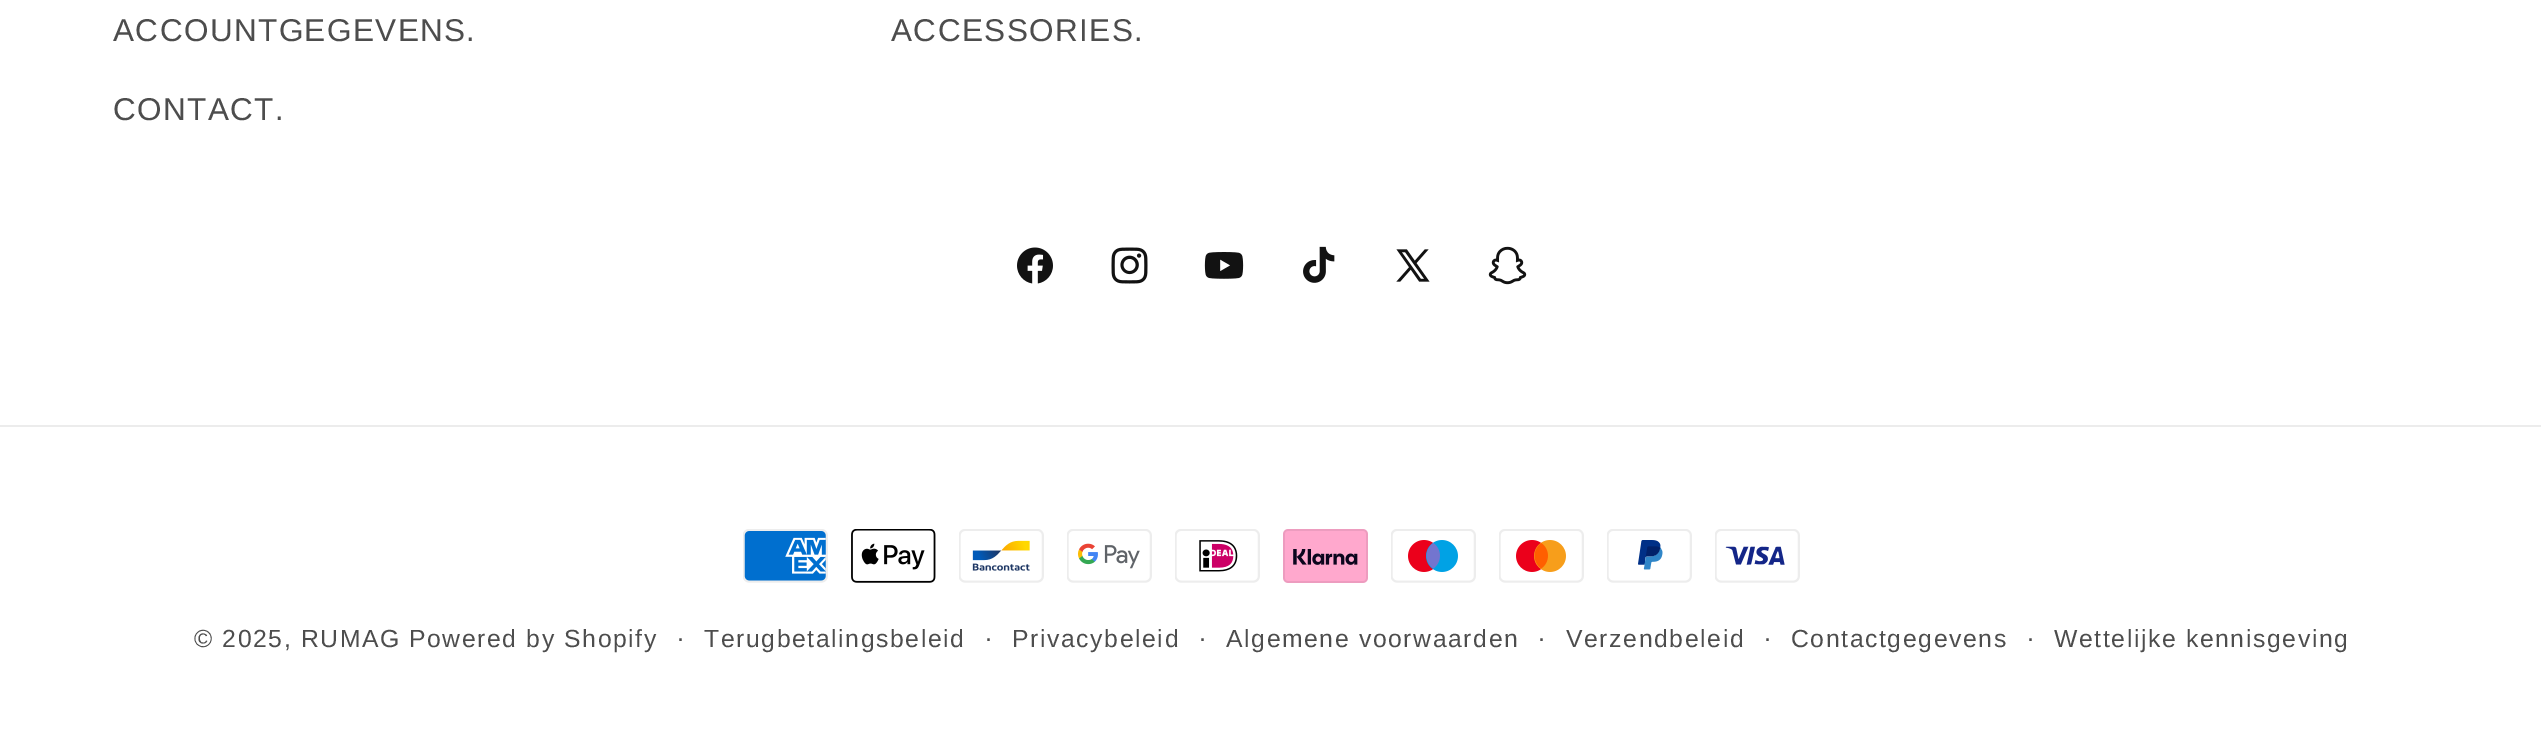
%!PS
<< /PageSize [2541 741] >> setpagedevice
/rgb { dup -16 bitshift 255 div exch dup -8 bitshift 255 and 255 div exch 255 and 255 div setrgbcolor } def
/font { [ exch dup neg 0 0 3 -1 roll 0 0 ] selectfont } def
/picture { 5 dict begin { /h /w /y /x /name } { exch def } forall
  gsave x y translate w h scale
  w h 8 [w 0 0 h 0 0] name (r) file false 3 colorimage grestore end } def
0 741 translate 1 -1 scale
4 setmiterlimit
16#FFFFFF rgb
0 0 2541 741 rectfill
/LiberationSans-Regular 31.5 font
16#4D4D4D rgb
113 41 moveto 1.4 0 (ACCOUNTGEGEVENS.) ashow
113 120 moveto 1.4 0 (CONTACT.) ashow
891 41 moveto 1.4 0 (ACCESSORIES.) ashow
(pic1.raw) 1017 247 36 37 picture
(pic2.raw) 1111 247 37 37 picture
(pic3.raw) 1204 252 40 27 picture
(pic4.raw) 1303 246 32 37 picture
(pic5.raw) 1396 249 34 33 picture
(pic6.raw) 1488 246 39 39 picture
16#ECECEC rgb
0 425 2541 2 rectfill
(pic7.raw) 743 529 85 54 picture
(pic8.raw) 851 529 85 54 picture
(pic9.raw) 959 529 85 54 picture
(pic10.raw) 1067 529 85 54 picture
(pic11.raw) 1175 529 85 54 picture
(pic12.raw) 1283 529 85 54 picture
(pic13.raw) 1391 529 85 54 picture
(pic14.raw) 1499 529 85 54 picture
(pic15.raw) 1607 529 85 54 picture
(pic16.raw) 1715 529 85 54 picture
/LiberationSans-Regular 24.75 font
16#4D4D4D rgb
194 647 moveto 1.6 0 (© 2025, RUMAG) ashow
409 647 moveto 1.6 0 (Powered by Shopify) ashow
/LiberationSans-Regular 27 font
676 647 moveto 1.6 0 (·) ashow
/LiberationSans-Regular 24.75 font
704 647 moveto 1.6 0 (Terugbetalingsbeleid) ashow
/LiberationSans-Regular 27 font
984 647 moveto 1.6 0 (·) ashow
/LiberationSans-Regular 24.75 font
1012 647 moveto 1.6 0 (Privacybeleid) ashow
/LiberationSans-Regular 27 font
1198 647 moveto 1.6 0 (·) ashow
/LiberationSans-Regular 24.75 font
1226 647 moveto 1.6 0 (Algemene voorwaarden) ashow
/LiberationSans-Regular 27 font
1537 647 moveto 1.6 0 (·) ashow
/LiberationSans-Regular 24.75 font
1566 647 moveto 1.6 0 (Verzendbeleid) ashow
/LiberationSans-Regular 27 font
1763 647 moveto 1.6 0 (·) ashow
/LiberationSans-Regular 24.75 font
1791 647 moveto 1.6 0 (Contactgegevens) ashow
/LiberationSans-Regular 27 font
2026 647 moveto 1.6 0 (·) ashow
/LiberationSans-Regular 24.75 font
2054 647 moveto 1.6 0 (Wettelijke kennisgeving) ashow
showpage
